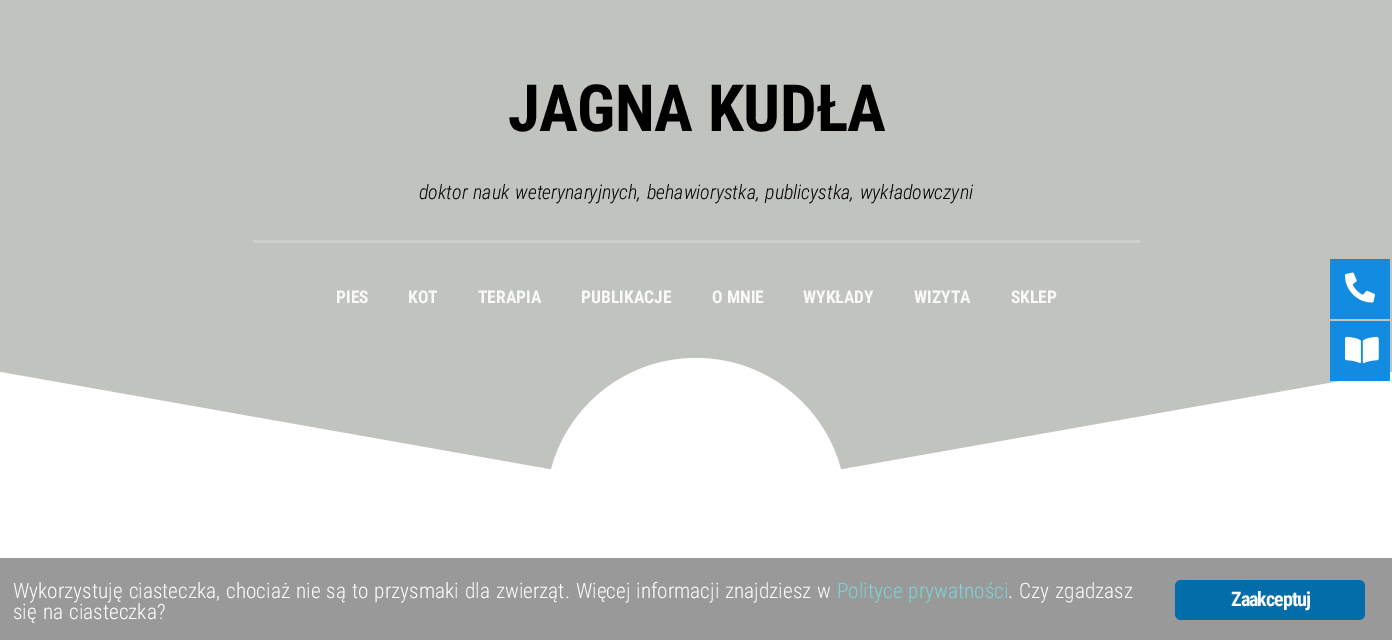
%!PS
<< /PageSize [1392 640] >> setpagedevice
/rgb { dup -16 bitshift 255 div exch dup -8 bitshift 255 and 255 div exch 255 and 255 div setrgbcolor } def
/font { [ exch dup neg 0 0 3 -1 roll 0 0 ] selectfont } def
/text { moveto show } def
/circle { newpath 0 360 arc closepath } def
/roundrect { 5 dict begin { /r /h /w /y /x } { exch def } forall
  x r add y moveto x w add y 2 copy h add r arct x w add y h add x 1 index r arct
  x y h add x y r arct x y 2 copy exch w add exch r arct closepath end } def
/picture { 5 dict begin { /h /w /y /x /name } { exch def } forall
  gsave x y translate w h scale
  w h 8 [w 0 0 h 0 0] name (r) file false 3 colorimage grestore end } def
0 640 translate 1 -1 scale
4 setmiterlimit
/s1 { /RobotoCondensed-Bold 17.5 font 16#F9F9F9 rgb } def
16#C1C4BE rgb
0 0 1392 640 rectfill
/RobotoCondensed-Bold 65 font
16#000000 rgb
508 131 moveto 1.25 0 32 -0.6 0 (JAGNA KUDŁA) awidthshow
/RobotoCondensed-LightItalic 20 font
419 199 moveto 1.25 0 32 (doktor nauk weterynaryjnych, behawiorystka, publicystka, wykładowczyni) widthshow
16#CDD0CB rgb
253 240 887 3 rectfill
s1
(PIES) 336 303 text
(KOT) 408 303 text
(TERAPIA) 478 303 text
(PUBLIKACJE) 581 303 text
(O MNIE) 712 303 text
(WYKŁADY) 803 303 text
(WIZYTA) 914 303 text
(SKLEP) 1011 303 text
16#FFFFFF rgb
-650 257 moveto 735 502 lineto 692 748 lineto -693 503 lineto closepath fill
657 502 moveto 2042 257 lineto 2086 503 lineto 701 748 lineto closepath fill
696 508 150 circle fill
16#128BE0 rgb
1330 259 60 60 rectfill
(pic1.raw) 1345 272 30 31 picture
1330 321 60 60 rectfill
(pic2.raw) 1345 336 34 28 picture
16#999999 rgb
0 558 1392 82 rectfill
/RobotoCondensed-Light 21.25 font
16#FFFFFF rgb
13 598 moveto 1.25 0 32 (Wykorzystuję ciasteczka, chociaż nie są to przysmaki dla zwierząt. Więcej informacji znajdziesz w) widthshow
16#81D3D3 rgb
837 598 moveto 1.25 0 32 (Polityce prywatności) widthshow
16#FFFFFF rgb
1008 598 moveto 1.25 0 32 (. Czy zgadzasz) widthshow
13 619 moveto 1.25 0 32 (się na ciasteczka?) widthshow
16#036DAA rgb
1175 580 190 40 6 roundrect fill
/RobotoCondensed-Bold 20 font
16#FFFFFF rgb
1231 606 moveto -1 0 (Zaakceptuj) ashow
showpage
